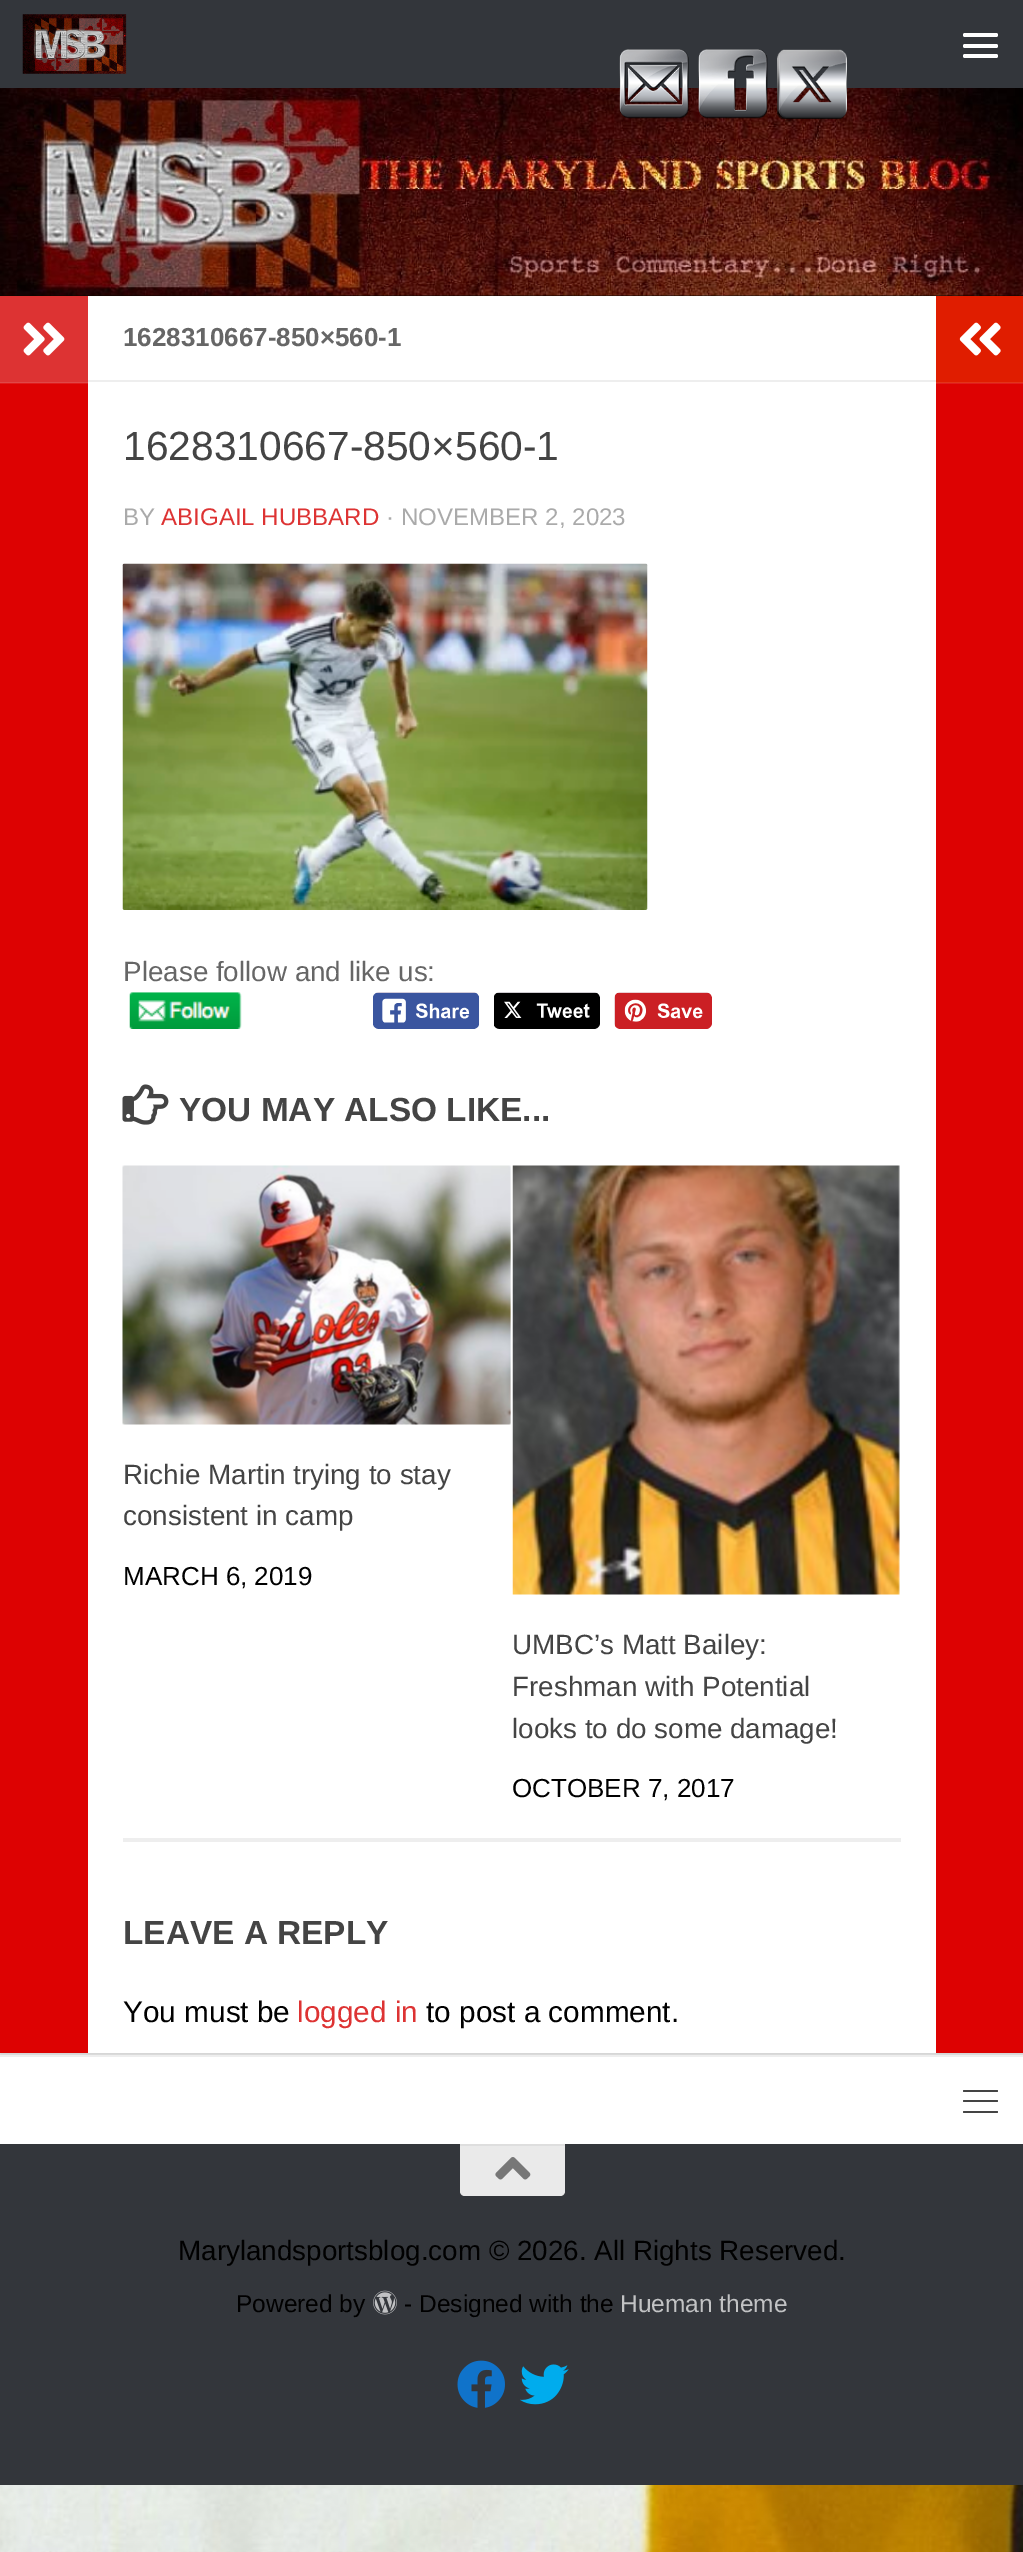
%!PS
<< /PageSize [1023 2552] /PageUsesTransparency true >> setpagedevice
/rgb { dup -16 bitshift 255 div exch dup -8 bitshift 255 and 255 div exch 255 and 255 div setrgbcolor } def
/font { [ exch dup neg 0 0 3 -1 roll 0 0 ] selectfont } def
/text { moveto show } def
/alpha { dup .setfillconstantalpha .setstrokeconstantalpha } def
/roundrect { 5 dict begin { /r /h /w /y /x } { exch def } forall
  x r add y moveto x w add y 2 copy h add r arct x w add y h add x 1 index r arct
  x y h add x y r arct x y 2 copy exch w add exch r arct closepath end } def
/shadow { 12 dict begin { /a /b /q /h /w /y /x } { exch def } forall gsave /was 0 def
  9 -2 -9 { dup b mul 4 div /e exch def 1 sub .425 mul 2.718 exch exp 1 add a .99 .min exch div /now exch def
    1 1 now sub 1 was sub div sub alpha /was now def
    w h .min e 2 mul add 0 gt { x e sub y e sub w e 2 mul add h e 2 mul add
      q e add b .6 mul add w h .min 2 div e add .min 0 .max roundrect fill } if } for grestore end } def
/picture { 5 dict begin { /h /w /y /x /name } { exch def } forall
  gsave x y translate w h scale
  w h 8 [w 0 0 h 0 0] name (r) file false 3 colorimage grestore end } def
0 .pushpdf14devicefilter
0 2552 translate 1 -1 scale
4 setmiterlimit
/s1 { /LiberationSans-Bold 26 font 16#666666 rgb } def
/s2 { /LiberationSans-Regular 40.75 font 16#444444 rgb } def
/s3 { /LiberationSans-Regular 24.1 font 16#AAAAAA rgb } def
/s4 { /LiberationSans-Regular 24.1 font 16#DD3333 rgb } def
/s5 { /LiberationSans-Regular 27.8 font 16#666666 rgb } def
/s6 { /LiberationSans-Bold 33.4 font 16#444444 rgb } def
/s7 { /LiberationSans-Regular 27.8 font 16#444444 rgb } def
/s8 { /LiberationSans-Regular 26 font 16#000000 rgb } def
/s9 { /LiberationSans-Regular 29.75 font 16#000000 rgb } def
/s10 { /LiberationSans-Regular 29.75 font 16#DD3333 rgb } def
/s11 { /LiberationSans-Regular 27.8 font 16#000000 rgb } def
/s12 { /LiberationSans-Regular 24.5 font 16#000000 rgb } def
/s13 { /LiberationSans-Regular 24.5 font 16#C2C3C4 rgb } def
16#FFFFFF rgb
0 0 1023 2552 rectfill
(pic1.raw) 0 2485 1023 67 picture
16#EAEAEA rgb
0 2053 1023 2 rectfill
16#000000 rgb
0 298 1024 1757 0 1 0.1 shadow
16#0A0600 rgb
0 88 1023 208 rectfill
16#33363B rgb
0 0 1023 88 rectfill
(pic6.raw) 0 88 1023 208 picture
(pic2.raw) 619 49 70 70 picture
(pic3.raw) 698 49 70 70 picture
(pic4.raw) 777 49 70 70 picture
(pic5.raw) 22 14 105 60 picture
16#FFFFFF rgb
963 33 35 4 2 roundrect fill
963 44 35 4 2 roundrect fill
963 54 35 4 2 roundrect fill
88 297 848 1756 rectfill
16#DD0202 rgb
0 383 88 1670 rectfill
16#DD3333 rgb
0 296 88 87 rectfill
0.1 alpha
16#FFFFFF rgb
0 382 88 2 rectfill
1 alpha
(pic7.raw) 23 322 42 34 picture
16#EEEEEE rgb
88 380 848 2 rectfill
s1
(1628310667-850×560-1) 123 346 text
s2
(1628310667-850×560-1) 123 460 text
s3
(BY) 123 525 text
s4
(ABIGAIL HUBBARD) 161 525 text
s3
(· NOVEMBER 2, 2023) 386 525 text
(pic8.raw) 122 563 526 347 picture
s5
(Please follow and like us:) 123 981 text
(pic9.raw) 129 992 113 37 picture
(pic10.raw) 373 992 107 37 picture
(pic11.raw) 494 992 106 37 picture
(pic12.raw) 614 992 98 37 picture
(pic13.raw) 122 1084 47 41 picture
s6
(YOU MAY ALSO LIKE...) 179 1121 text
16#EEEEEE rgb
123 1838 778 4 rectfill
(pic14.raw) 122 1165 389 260 picture
s7
(Richie Martin trying to stay) 123 1484 text
(consistent in camp) 123 1525 text
s8
(MARCH 6, 2019) 123 1585 text
(pic15.raw) 512 1165 388 430 picture
s7
(UMBC’s Matt Bailey:) 512 1654 text
(Freshman with Potential) 512 1696 text
(looks to do some damage!) 512 1738 text
s8
(OCTOBER 7, 2017) 512 1797 text
s6
(LEAVE A REPLY) 123 1944 text
s9
(You must be) 123 2022 text
s10
(logged in) 297 2022 text
s9
(to post a comment.) 426 2022 text
16#E01D00 rgb
936 296 87 87 rectfill
16#DD0202 rgb
936 383 87 1670 rectfill
0.1 alpha
16#FFFFFF rgb
936 382 87 2 rectfill
1 alpha
(pic16.raw) 959 322 42 34 picture
16#EEEEEE rgb
0 2055 1023 2 rectfill
16#444444 rgb
963 2090 35 2 1 roundrect fill
963 2100 35 2 1 roundrect fill
963 2111 35 2 1 roundrect fill
16#33363B rgb
0 2144 1023 341 rectfill
16#EAEAEA rgb
460 2144 moveto 565 2144 lineto 565 2191 lineto 565 2194 563 2196 560 2196 curveto 465 2196 lineto 462 2196 460 2194 460 2191 curveto closepath fill
16#DEDEDE rgb
460 2144 105 2 rectfill
(pic17.raw) 495 2157 36 23 picture
s11
(Marylandsportsblog.com © 2026. All Rights Reserved.) 178 2260 text
s12
(Powered by) 236 2312 text
(pic18.raw) 373 2290 24 25 picture
(- Designed with the) 404 2312 text
s13
(Hueman theme) 620 2312 text
(pic19.raw) 457 2360 48 48 picture
(pic20.raw) 520 2364 49 41 picture
.poppdf14devicefilter showpage
